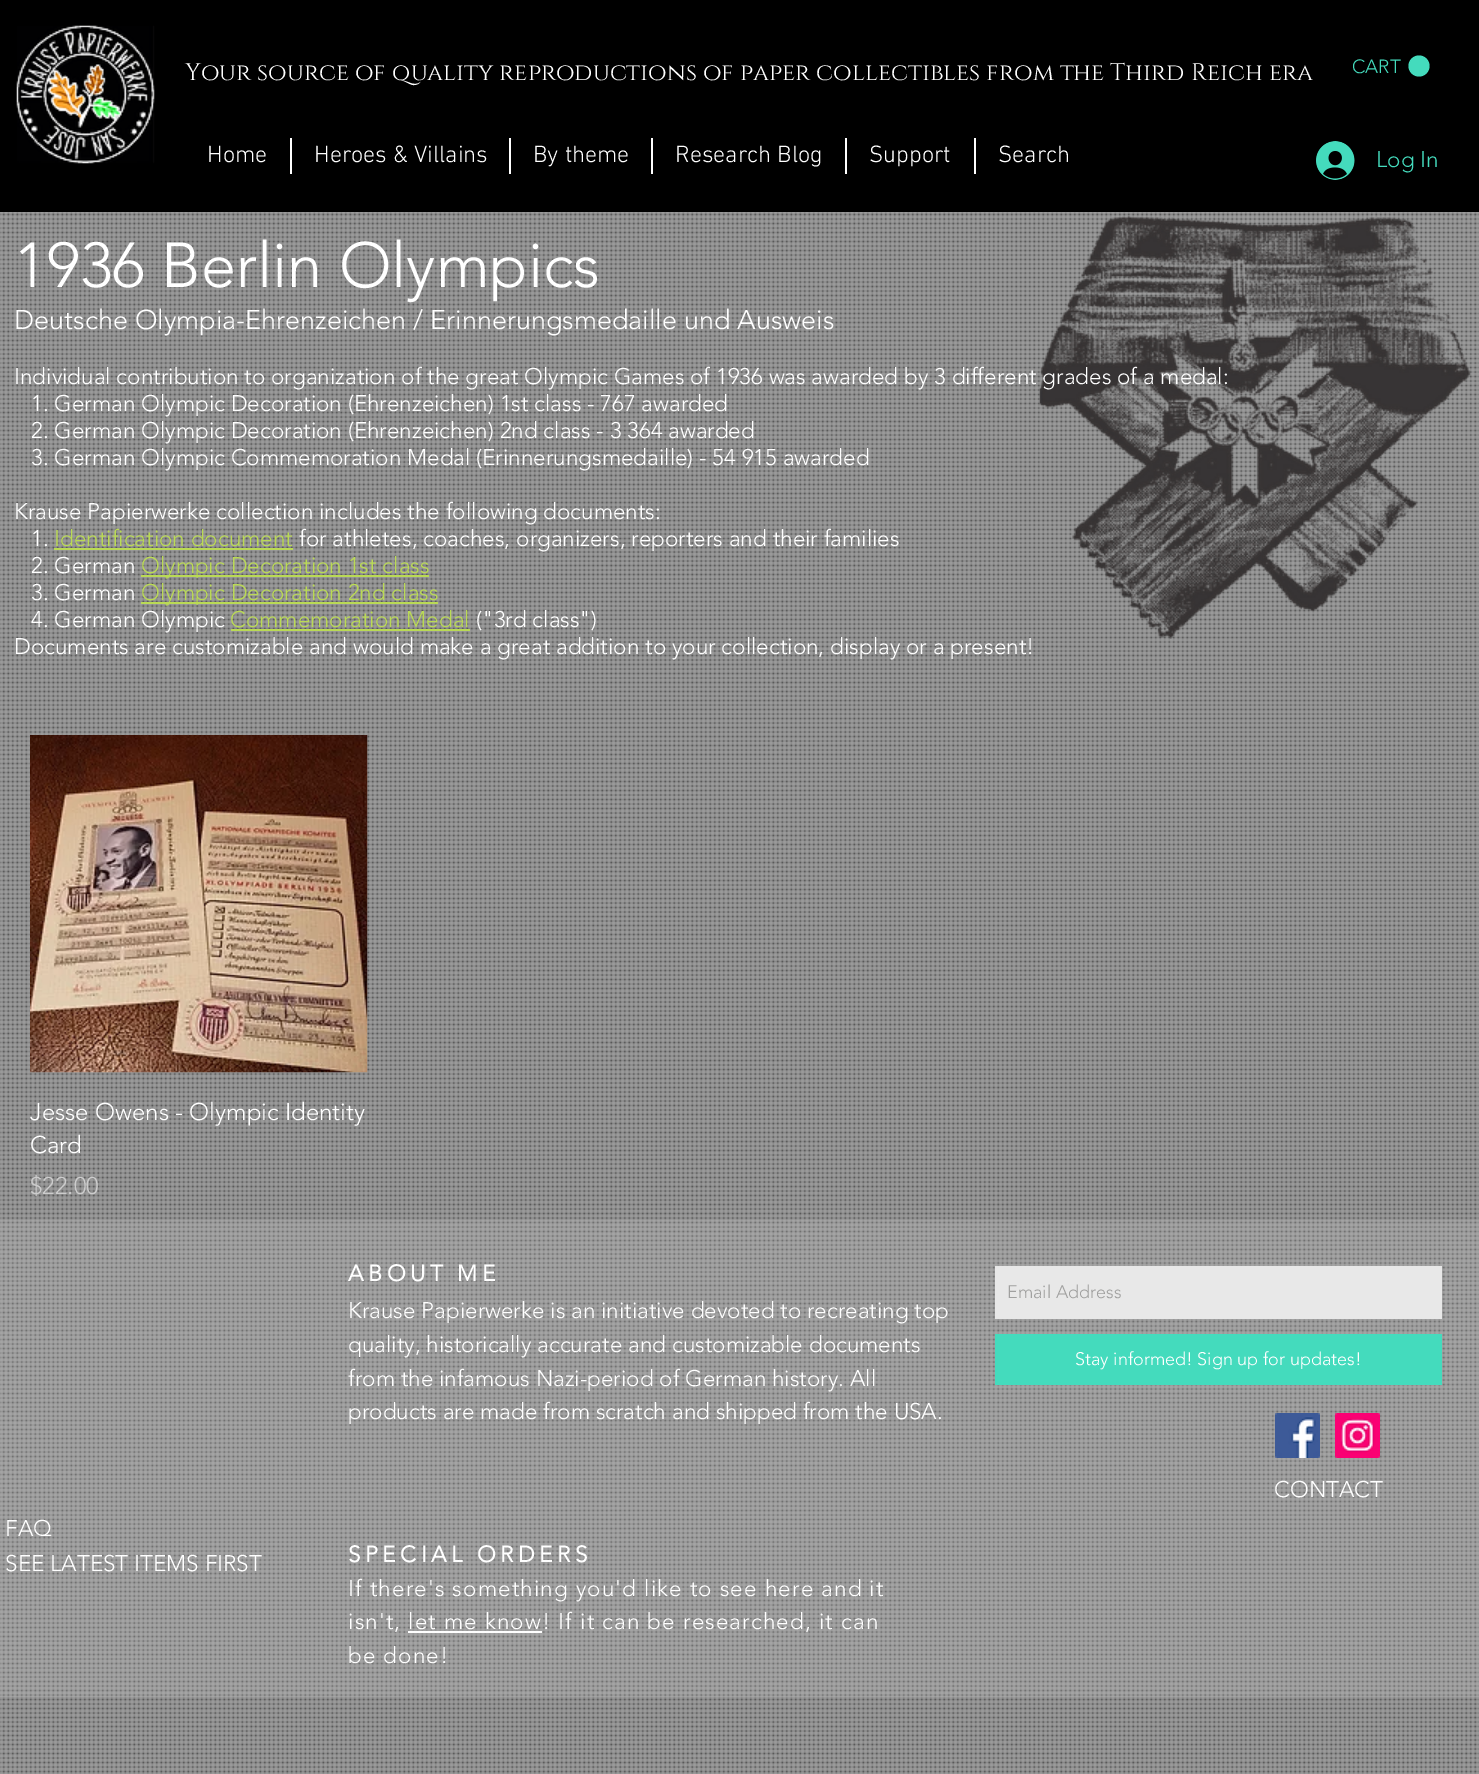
%!PS
<< /PageSize [1479 1774] /PageUsesTransparency true >> setpagedevice
/rgb { dup -16 bitshift 255 div exch dup -8 bitshift 255 and 255 div exch 255 and 255 div setrgbcolor } def
/font { [ exch dup neg 0 0 3 -1 roll 0 0 ] selectfont } def
/text { moveto show } def
/alpha { dup .setfillconstantalpha .setstrokeconstantalpha } def
/circle { newpath 0 360 arc closepath } def
/picture { 5 dict begin { /h /w /y /x /name } { exch def } forall
  gsave x y translate w h scale
  w h 8 [w 0 0 h 0 0] name (r) file false 3 colorimage grestore end } def
0 .pushpdf14devicefilter
0 1774 translate 1 -1 scale
4 setmiterlimit
/s1 { /Cinzel-Regular 24 font 16#FFFFFF rgb } def
/s2 { /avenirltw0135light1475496-Light 19 font 16#44DBBD rgb } def
/s3 { /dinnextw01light-Light 24 font 16#FFFFFF rgb } def
/s4 { /avenirltw0135light1475496-Light 22.5 font 16#44DBBD rgb } def
/s5 { /avenirltw0135light1475496-Light 63 font 16#FFFFFF rgb } def
/s6 { /avenirltw0135light1475496-Light 27 font 16#FFFFFF rgb } def
/s7 { /avenirltw0135light1475496-Light 22.5 font 16#FFFFFF rgb } def
/s8 { /avenirltw0135light1475496-Light 22.5 font 16#BADA55 rgb } def
/s9 { /avenirltw0135light1475496-Light 24 font 16#FFFFFF rgb } def
/s10 { /avenirltw0135light1475496-Light 24 font 16#CCCCCC rgb } def
/s11 { /avenirltw0135light1475496-Light 18 font 16#A0A09F rgb } def
/s12 { /avenirltw0135light1475496-Light 18 font 16#FFFFFF rgb } def
16#9A9A9A rgb
0 0 1479 1774 rectfill
16#000000 rgb
0 0 1479 212 rectfill
(pic1.raw) 16 25 139 139 picture
s1
(Your source of quality reproductions of paper collectibles from the Third Reich era) 185 80 text
16#44DBBD rgb
1419 66 10.5 circle fill
s2
(CART) 1352 73 text
s3
(Home) 207 162 text
290 138 2 36 rectfill
(Heroes & Villains) 314 162 text
509 138 2 36 rectfill
(By theme) 533 162 text
651 138 2 36 rectfill
(Research Blog) 675 162 text
845 138 2 36 rectfill
(Support) 869 162 text
974 138 2 36 rectfill
(Search) 998 162 text
(pic2.raw) 1316 141 39 39 picture
s4
(Log In) 1376 167 text
(pic7.raw) 0 212 1479 1562 picture
s5
(1936 Berlin Olympics) 14 287 text
s6
(Deutsche Olympia-Ehrenzeichen / Erinnerungsmedaille und Ausweis) 14 329 text
(pic3.raw) 1039 216 432 423 picture
s7
(Individual contribution to organization of the great Olympic Games of 1936 was awarded by 3 different grades of a medal:) 14 384 text
(1. German Olympic Decoration \(Ehrenzeichen\) 1st class - 767 awarded) 31 411 text
(2. German Olympic Decoration \(Ehrenzeichen\) 2nd class - 3 364 awarded) 31 438 text
(3. German Olympic Commemoration Medal \(Erinnerungsmedaille\) - 54 915 awarded) 31 465 text
(Krause Papierwerke collection includes the following documents:) 14 519 text
(1.) 31 546 text
s8
(Identification document) 54 546 text
54 548 239 2 rectfill
s7
(for athletes, coaches, organizers, reporters and their families) 299 546 text
(2. German) 31 573 text
16#BADA55 rgb
141 575 288 2 rectfill
(Olympic Decoration 1st class) 141 573 text
s7
(3. German) 31 600 text
16#BADA55 rgb
141 602 297 2 rectfill
(Olympic Decoration 2nd class) 141 600 text
s7
(4. German Olympic) 31 627 text
s8
(Commemoration Medal) 230 627 text
231 629 239 2 rectfill
s7
(\("3rd class"\)) 476 627 text
(Documents are customizable and would make a great addition to your collection, display or a present!) 14 654 text
(pic4.raw) 30 735 338 338 picture
s9
(Jesse Owens - Olympic Identity) 30 1120 text
(Card) 30 1153 text
s10
($22.00) 30 1194 text
0.2 alpha
0 1220 1479 477 rectfill
/avenirltw0135light1475496-Bold 22.5 font
1 alpha
16#FFFFFF rgb
348 1281 moveto 4.5 0 (ABOUT ME) ashow
s7
(Krause Papierwerke is an initiative devoted to recreating top) 348 1318 text
(quality, historically accurate and customizable documents) 348 1352 text
(from the infamous Nazi-period of German history. All) 348 1386 text
(products are made from scratch and shipped from the USA.) 348 1419 text
16#E8E8E8 rgb
995 1266 447 53 rectfill
s11
(Email Address) 1007 1298 text
16#44DBBD rgb
995 1334 447 51 rectfill
s12
(Stay informed! Sign up for updates!) 1075 1365 text
(pic5.raw) 1275 1413 45 45 picture
(pic6.raw) 1335 1413 45 45 picture
s7
(CONTACT) 1274 1497 text
(FAQ) 5 1536 text
(SEE LATEST ITEMS FIRST) 5 1571 text
/avenirltw0135light1475496-Bold 22.5 font
348 1562 moveto 4.5 0 (SPECIAL ORDERS) ashow
/avenirltw0135light1475496-Light 22.5 font
348 1596 moveto 1.12 0 (If there's something you'd like to see here and it) ashow
348 1629 moveto 1.12 0 (isn't, let me know! If it can be researched, it can) ashow
408 1631 134 2 rectfill
348 1663 moveto 1.12 0 (be done!) ashow
.poppdf14devicefilter showpage
